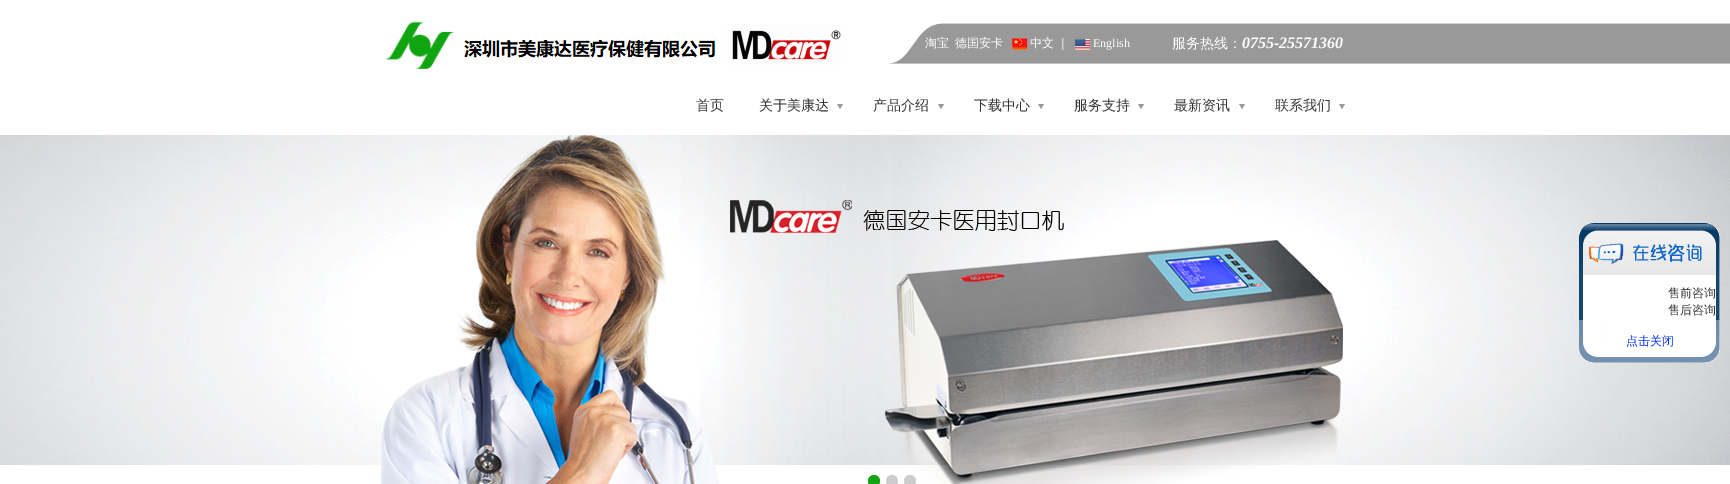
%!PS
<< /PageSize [1730 484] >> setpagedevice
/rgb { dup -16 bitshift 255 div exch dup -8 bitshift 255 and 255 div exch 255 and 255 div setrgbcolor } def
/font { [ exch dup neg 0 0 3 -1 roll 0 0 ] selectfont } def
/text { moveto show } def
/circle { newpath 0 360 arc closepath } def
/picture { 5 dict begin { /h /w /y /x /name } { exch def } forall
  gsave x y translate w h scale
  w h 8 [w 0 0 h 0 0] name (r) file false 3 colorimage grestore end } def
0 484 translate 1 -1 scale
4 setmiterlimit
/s1 { /WenQuanYiZenHei-Medium 12 font 16#FFFFFF rgb } def
/s2 { /LiberationSerif-Regular 12 font 16#FFFFFF rgb } def
/s3 { /WenQuanYiZenHei-Medium 14 font 16#FFFFFF rgb } def
/s4 { /LiberationSerif-BoldItalic 16 font 16#FFFFFF rgb } def
/s5 { /WenQuanYiZenHei-Medium 14 font 16#333333 rgb } def
/s6 { /WenQuanYiZenHei-Medium 12 font 16#333333 rgb } def
/s7 { /WenQuanYiZenHei-Medium 12 font 16#0033FF rgb } def
16#FFFFFF rgb
0 0 1730 484 rectfill
(pic1.raw) 888 23 842 41 picture
(pic2.raw) 385 21 456 48 picture
s1
(淘宝) 925 47 text
(德国安卡) 955 47 text
(pic3.raw) 1012 38 15 12 picture
(中文) 1030 47 text
(｜) 1057 47 text
(pic4.raw) 1075 39 15 11 picture
s2
(English) 1093 47 text
s3
(服务热线：) 1172 48 text
s4
(0755-25571360) 1242 48 text
s5
(首页) 696 110 text
(关于美康达) 759 110 text
(pic5.raw) 837 104 6 5 picture
(产品介绍) 873 110 text
(pic5.raw) 938 104 6 5 picture
(下载中心) 974 110 text
(pic5.raw) 1038 104 6 5 picture
(服务支持) 1074 110 text
(pic5.raw) 1138 104 6 5 picture
(最新资讯) 1174 110 text
(pic5.raw) 1239 104 6 5 picture
(联系我们) 1275 110 text
(pic5.raw) 1339 104 6 5 picture
(pic6.raw) 0 135 1730 330 picture
(pic7.raw) 381 135 962 349 picture
16#10A511 rgb
874 481 6 circle fill
16#CCCCCC rgb
892 481 6 circle fill
910 481 6 circle fill
(pic8.raw) 1579 223 141 52 picture
(pic9.raw) 1579 275 141 45 picture
s6
(售前咨询) 1668 297 text
(售后咨询) 1668 314 text
(pic10.raw) 1579 320 141 43 picture
s7
(点击关闭) 1626 345 text
showpage
